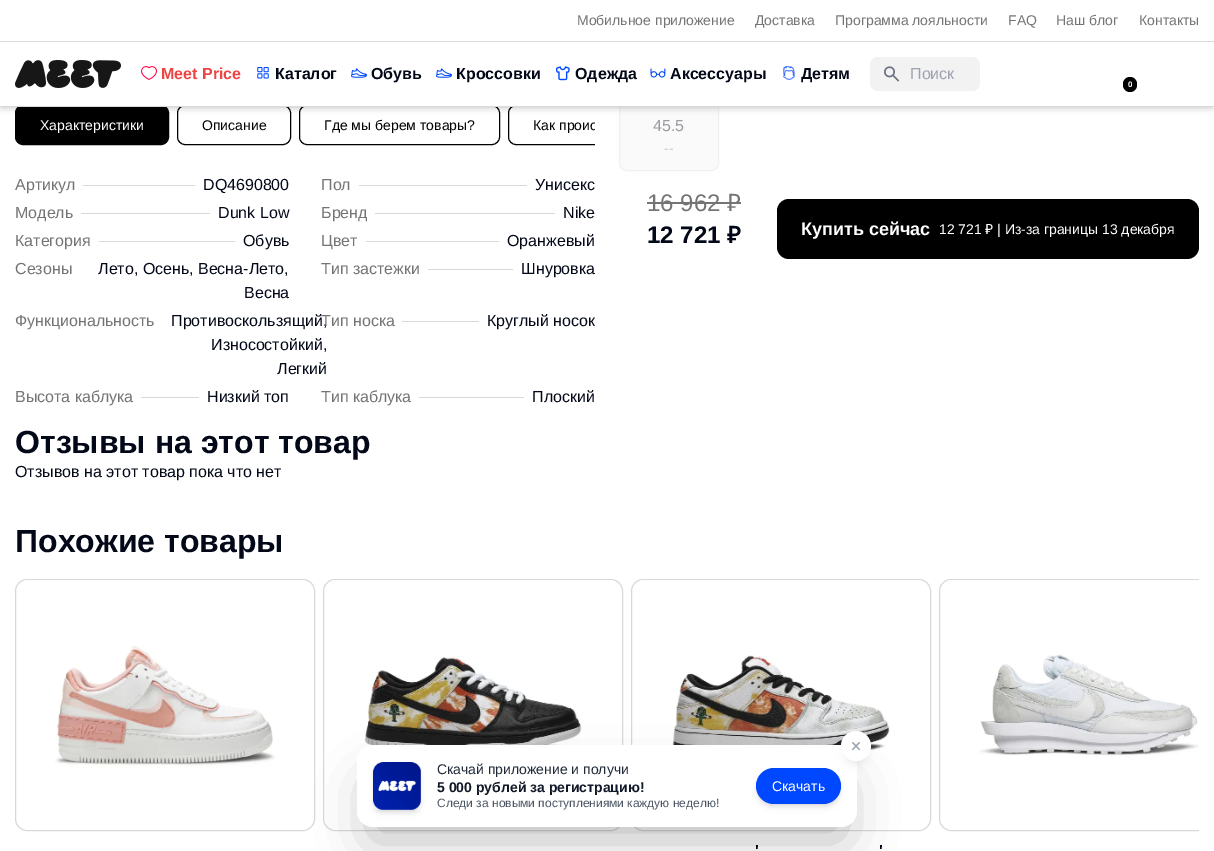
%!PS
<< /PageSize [1214 851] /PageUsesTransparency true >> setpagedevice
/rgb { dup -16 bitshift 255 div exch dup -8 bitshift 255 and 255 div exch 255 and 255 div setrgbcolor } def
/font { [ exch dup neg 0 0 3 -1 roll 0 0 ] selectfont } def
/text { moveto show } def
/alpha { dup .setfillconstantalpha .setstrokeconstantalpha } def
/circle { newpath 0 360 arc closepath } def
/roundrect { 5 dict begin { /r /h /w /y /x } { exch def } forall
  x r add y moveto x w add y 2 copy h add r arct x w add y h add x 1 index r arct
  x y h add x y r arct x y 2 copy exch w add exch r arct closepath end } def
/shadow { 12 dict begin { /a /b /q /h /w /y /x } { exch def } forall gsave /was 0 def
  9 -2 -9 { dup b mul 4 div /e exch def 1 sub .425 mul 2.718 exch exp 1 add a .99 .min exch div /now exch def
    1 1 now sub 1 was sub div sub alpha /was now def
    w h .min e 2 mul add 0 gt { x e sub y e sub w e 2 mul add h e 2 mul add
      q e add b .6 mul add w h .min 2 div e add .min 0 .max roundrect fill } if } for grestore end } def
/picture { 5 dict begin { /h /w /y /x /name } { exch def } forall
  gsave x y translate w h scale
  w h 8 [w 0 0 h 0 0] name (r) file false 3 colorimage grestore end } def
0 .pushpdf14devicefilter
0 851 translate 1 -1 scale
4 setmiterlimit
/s1 { /LiberationSans-Regular 14 font 16#747474 rgb } def
/s2 { /LiberationSans-Bold 16 font 16#EF4444 rgb } def
/s3 { /LiberationSans-Bold 16 font 16#020817 rgb } def
/s4 { /LiberationSans-Regular 16 font 16#9CA3AF rgb } def
/s5 { /LiberationSans-Bold 8 font 16#F8FAFC rgb } def
/s6 { /LiberationSans-Regular 14 font 16#FFFFFF rgb } def
/s7 { /LiberationSans-Regular 14 font 16#000000 rgb } def
/s8 { /LiberationSans-Regular 16 font 16#747474 rgb } def
/s9 { /LiberationSans-Regular 16 font 16#020817 rgb } def
/s10 { /LiberationSans-Regular 16 font 16#9A9CA2 rgb } def
/s11 { /LiberationSans-Regular 14 font 16#C7C7C7 rgb } def
/s12 { /LiberationSans-Regular 24 font 16#747474 rgb } def
/s13 { /NotoSans-Regular 24 font 16#747474 rgb } def
/s14 { /LiberationSans-Bold 24 font 16#020817 rgb } def
/s15 { /NotoSans-SemiBold 24 font 16#020817 rgb } def
/s16 { /LiberationSans-Bold 18 font 16#FFFFFF rgb } def
/s17 { /NotoSans-Regular 14 font 16#FFFFFF rgb } def
/s18 { /LiberationSans-Bold 32 font 16#020817 rgb } def
/s19 { /LiberationSans-Regular 14 font 16#1F2937 rgb } def
/s20 { /LiberationSans-Bold 14 font 16#111827 rgb } def
/s21 { /LiberationSans-Regular 12 font 16#4B5563 rgb } def
16#FFFFFF rgb
0 0 1214 851 rectfill
16#000000 rgb
15.5 105.5 153 39 7.5 roundrect gsave fill grestore
stroke
177.5 105.5 113 39 7.5 roundrect stroke
299.5 105.5 200 39 7.5 roundrect stroke
gsave
15 105 580 52 rectclip
508.5 105.5 220 39 7.5 roundrect stroke
grestore
16#FAFAFA rgb
619.5 101.5 99 69 7.5 roundrect gsave fill grestore
16#F0F0F0 rgb
stroke
16#000000 rgb
2 4 1210 103 0 2 0.1 shadow
1 5 1212 105 0 3 0.1 shadow
16#FFFFFF rgb
0 0 1214 106 rectfill
16#D9D9D9 rgb
0 41 1214 1 rectfill
s1
(Мобильное приложение) 577 25 text
(Доставка) 755 25 text
(Программа лояльности) 835 25 text
(FAQ) 1008 25 text
(Наш блог) 1056 25 text
(Контакты) 1139 25 text
16#D9D9D9 rgb
0 106 1214 1 rectfill
(pic1.raw) 15 60 106 28 picture
(pic2.raw) 141 66 16 14 picture
s2
(Meet Price) 161 79 text
(pic3.raw) 257 67 12 12 picture
s3
(Каталог) 275 79 text
(pic4.raw) 351 68 16 10 picture
(Обувь) 371 79 text
(pic4.raw) 436 68 16 10 picture
(Кроссовки) 456 79 text
(pic5.raw) 556 66 14 15 picture
(Одежда) 575 79 text
(pic6.raw) 650 68 16 10 picture
(Аксессуары) 670 79 text
(pic7.raw) 783 66 12 14 picture
(Детям) 801 79 text
16#F2F2F2 rgb
870 57 110 34 8 roundrect fill
(pic8.raw) 884 66 16 16 picture
s4
(Поиск) 910 79 text
16#000000 rgb
1123 77 14 15 7 roundrect fill
s5
(0) 1128 87 text
s6
(Характеристики) 40 130 text
s7
(Описание) 202 130 text
(Где мы берем товары?) 324 130 text
gsave
15 105 580 52 rectclip
(Как проис) 533 130 text
grestore
s8
(Артикул) 15 190 text
16#D9D9D9 rgb
83 185 112 1 rectfill
s9
(DQ4690800) 203 190 text
s8
(Пол) 321 190 text
16#D9D9D9 rgb
359 185 168 1 rectfill
s9
(Унисекс) 535 190 text
s8
(Модель) 15 218 text
16#D9D9D9 rgb
81 213 129 1 rectfill
s9
(Dunk Low) 218 218 text
s8
(Бренд) 321 218 text
16#D9D9D9 rgb
375 213 180 1 rectfill
s9
(Nike) 563 218 text
s8
(Категория) 15 246 text
16#D9D9D9 rgb
99 241 136 1 rectfill
s9
(Обувь) 243 246 text
s8
(Цвет) 321 246 text
16#D9D9D9 rgb
366 241 133 1 rectfill
s9
(Оранжевый) 507 246 text
s8
(Сезоны) 15 274 text
s9
(Лето, Осень, Весна-Лето,) 98 274 text
(Весна) 244 298 text
s8
(Тип застежки) 321 274 text
16#D9D9D9 rgb
428 269 85 1 rectfill
s9
(Шнуровка) 521 274 text
s8
(Функциональность) 15 326 text
s9
(Противоскользящий,) 171 326 text
(Износостойкий,) 211 350 text
(Легкий) 277 374 text
s8
(Тип носка) 321 326 text
16#D9D9D9 rgb
402 321 77 1 rectfill
s9
(Круглый носок) 487 326 text
s8
(Высота каблука) 15 402 text
16#D9D9D9 rgb
141 397 58 1 rectfill
s9
(Низкий топ) 207 402 text
s8
(Тип каблука) 321 402 text
16#D9D9D9 rgb
419 397 105 1 rectfill
s9
(Плоский) 532 402 text
s10
(45.5) 653 131 text
s11
(--) 664 153 text
s12
(16 962) 647 211 text
647 202 94 2 rectfill
s13
(₽) 727 211 text
s14
(12 721) 647 243 text
s15
(₽) 727 243 text
16#000000 rgb
777 199 422 60 12 roundrect fill
s16
(Купить сейчас) 801 235 text
s6
(12 721) 939 234 text
s17
(₽) 985 234 text
s6
(| Из-за границы 13 декабря) 997 234 text
s18
(Отзывы на этот товар) 15 453 text
s9
(Отзывов на этот товар пока что нет) 15 477 text
s18
(Похожие товары) 15 552 text
16#D9D9D9 rgb
15.5 579.5 299 251 11.5 roundrect stroke
(pic9.raw) 25 580 280 250 picture
323.5 579.5 299 251 11.5 roundrect stroke
(pic10.raw) 333 580 280 250 picture
gsave
15 579 1184 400 rectclip
939.5 579.5 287 251 11.5 roundrect stroke
grestore
(pic11.raw) 949 580 250 250 picture
631.5 579.5 299 251 11.5 roundrect stroke
(pic12.raw) 641 580 280 250 picture
s3
(') 755 856 text
(') 879 856 text
16#000000 rgb
369 782 476 58 4 25 0.25 shadow
16#FFFFFF rgb
357 745 500 82 16 roundrect fill
16#000000 rgb
375 766 44 44 6 2 0.1 shadow
374 767 46 46 7 3 0.1 shadow
16#F9FAFB rgb
373 762 48 48 8 roundrect fill
(pic13.raw) 373 762 48 48 picture
s19
(Скачай приложение и получи) 437 774 text
s20
(5 000 рублей за регистрацию!) 437 792 text
s21
(Следи за новыми поступлениями каждую неделю!) 437 807 text
16#000000 rgb
758 772 81 32 16 2 0.1 shadow
757 773 83 34 17 3 0.1 shadow
16#0048FF rgb
756 768 85 36 18 roundrect fill
s6
(Скачать) 772 791 text
16#000000 rgb
847 745 18 18 9 5 0.1 shadow
16#FFFFFF rgb
856 746 15 circle fill
16#9CA3AF rgb
1.2 setlinewidth
1 setlinecap
1 setlinejoin
859.5 742.5 moveto 852.5 749.5 lineto 852.5 742.5 moveto 859.5 749.5 lineto stroke
.poppdf14devicefilter showpage
